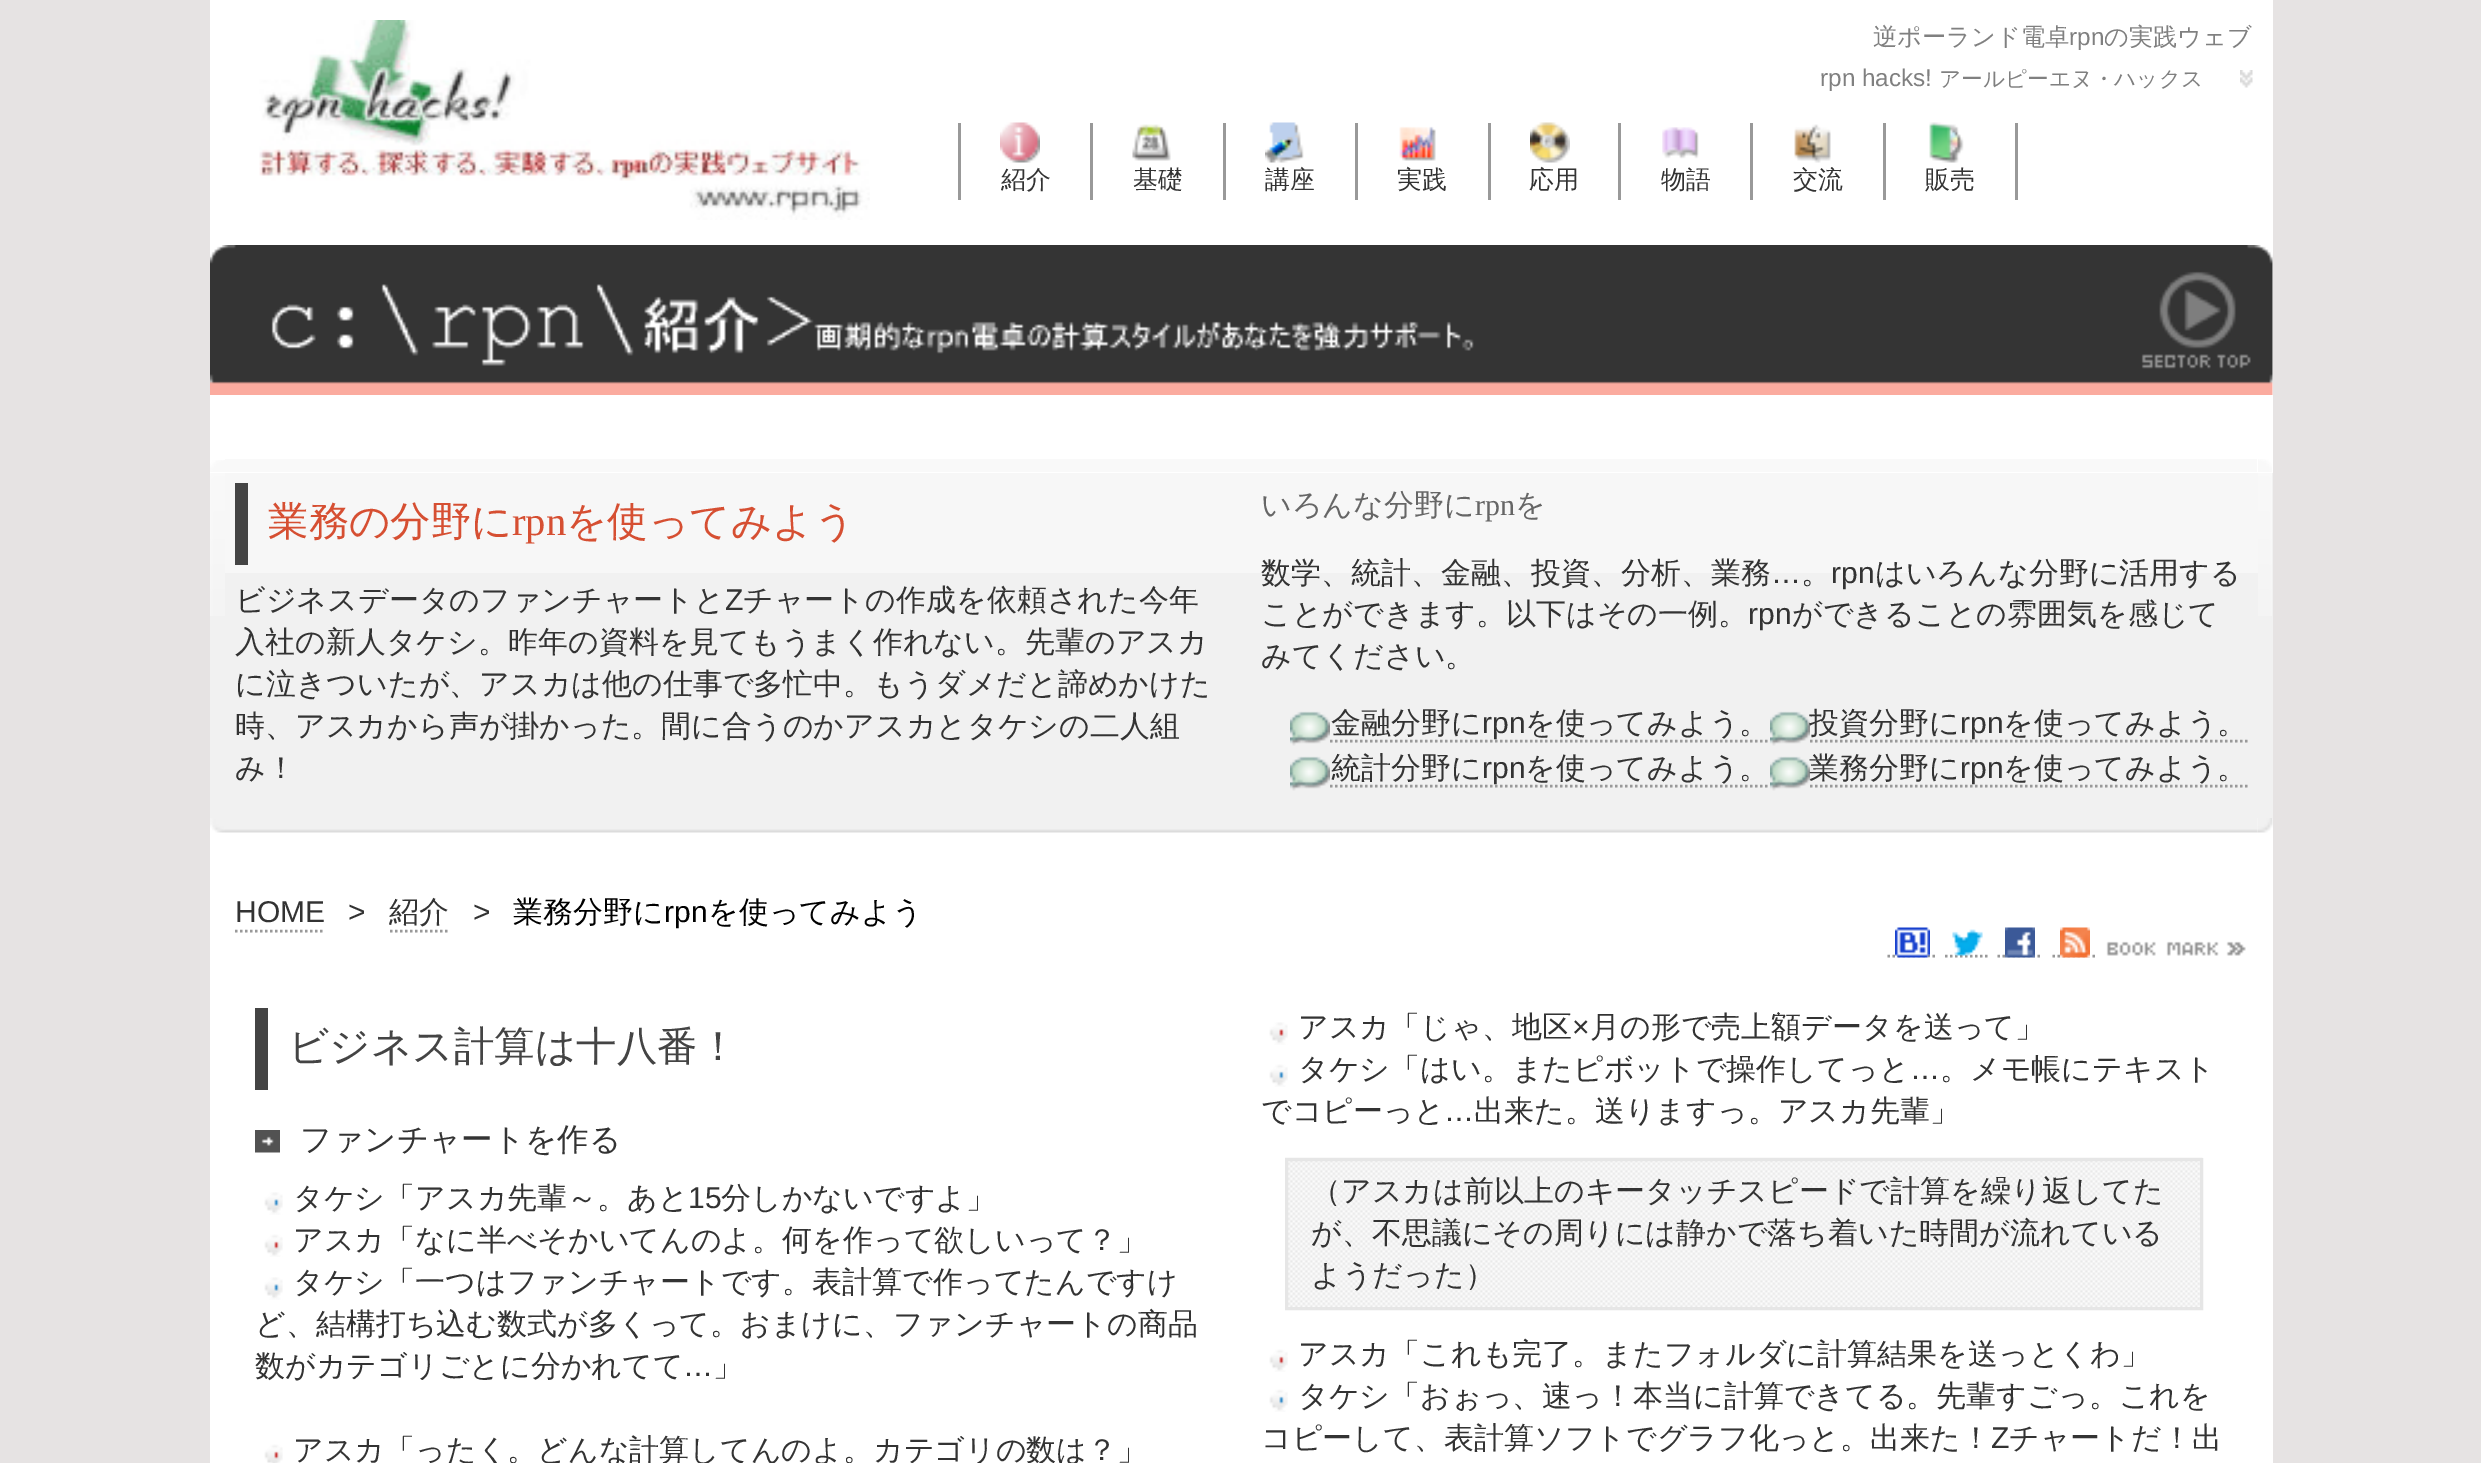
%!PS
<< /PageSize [2481 1463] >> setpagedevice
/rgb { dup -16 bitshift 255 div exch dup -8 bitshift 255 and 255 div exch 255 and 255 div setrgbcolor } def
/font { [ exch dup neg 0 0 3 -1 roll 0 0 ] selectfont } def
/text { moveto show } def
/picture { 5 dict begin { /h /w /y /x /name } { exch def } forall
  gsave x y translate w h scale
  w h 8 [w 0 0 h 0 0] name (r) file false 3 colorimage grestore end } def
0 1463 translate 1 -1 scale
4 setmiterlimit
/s1 { /WenQuanYiZenHei-Medium 24.25 font 16#808080 rgb } def
/s2 { /LiberationSans-Regular 24.25 font 16#808080 rgb } def
/s3 { /WenQuanYiZenHei-Medium 21.6 font 16#808080 rgb } def
/s4 { /WenQuanYiZenHei-Medium 25 font 16#333333 rgb } def
/s5 { /WenQuanYiZenHei-Medium 40.5 font 16#D64F32 rgb } def
/s6 { /LiberationSerif-Regular 40.5 font 16#D64F32 rgb } def
/s7 { /WenQuanYiZenHei-Medium 30 font 16#333333 rgb } def
/s8 { /LiberationSans-Regular 30 font 16#333333 rgb } def
/s9 { /WenQuanYiZenHei-Medium 30 font 16#666666 rgb } def
/s10 { /LiberationSerif-Regular 30 font 16#666666 rgb } def
/s11 { /WenQuanYiZenHei-Medium 30 font 16#000000 rgb } def
/s12 { /LiberationSans-Regular 30 font 16#000000 rgb } def
/s13 { /WenQuanYiZenHei-Medium 40.5 font 16#444444 rgb } def
/s14 { /WenQuanYiZenHei-Medium 31.5 font 16#333333 rgb } def
16#E6E3E3 rgb
0 0 2481 1463 rectfill
16#FFFFFF rgb
210 0 2063 1463 rectfill
(pic1.raw) 259 20 611 200 picture
s1
(逆ポーランド電卓) 1873 45 text
s2
(rpn) 2069 45 text
s1
(の実践ウェブ) 2104 45 text
s2
(rpn hacks!) 1820 86 text
s3
(アールピーエヌ・ハックス) 1939 86 text
(pic2.raw) 2240 70 13 18 picture
16#999999 rgb
1090 123 3 77 rectfill
958 123 3 77 rectfill
(pic3.raw) 1000 122 40 41 picture
s4
(紹介) 1001 188 text
16#999999 rgb
1223 123 3 77 rectfill
(pic4.raw) 1132 124 39 37 picture
s4
(基礎) 1133 188 text
16#999999 rgb
1355 123 3 77 rectfill
(pic5.raw) 1265 122 39 41 picture
s4
(講座) 1265 188 text
16#999999 rgb
1488 123 3 77 rectfill
(pic6.raw) 1399 126 37 35 picture
s4
(実践) 1397 188 text
16#999999 rgb
1618 123 3 77 rectfill
(pic7.raw) 1530 122 40 41 picture
s4
(応用) 1529 188 text
16#999999 rgb
1750 123 3 77 rectfill
(pic8.raw) 1662 127 37 32 picture
s4
(物語) 1661 188 text
16#999999 rgb
1883 123 3 77 rectfill
(pic9.raw) 1794 124 37 39 picture
s4
(交流) 1793 188 text
16#999999 rgb
2015 123 3 77 rectfill
(pic10.raw) 1929 122 35 41 picture
s4
(販売) 1925 188 text
(pic11.raw) 210 245 2063 150 picture
(pic12.raw) 210 460 15 12 picture
16#F9F9F9 rgb
225 459 2032 13 rectfill
(pic13.raw) 2258 459 14 13 picture
16#F1F1F1 rgb
210 616 15 202 rectfill
(pic14.raw) 210 473 15 143 picture
225 573 2033 245 rectfill
16#F7F7F7 rgb
225 473 2033 100 rectfill
16#444444 rgb
235 483 13 82 rectfill
s5
(業務の分野に) 268 535 text
s6
(rpn) 512 535 text
s5
(を使ってみよう) 566 535 text
s7
(ビジネスデータのファンチャートと) 235 610 text
s8
(Z) 725 610 text
s7
(チャートの作成を依頼された今年) 743 610 text
(入社の新人タケシ。昨年の資料を見てもうまく作れない。先輩のアスカ) 235 652 text
(に泣きついたが、アスカは他の仕事で多忙中。もうダメだと諦めかけた) 235 694 text
(時、アスカから声が掛かった。間に合うのかアスカとタケシの二人組) 235 736 text
(み！) 235 778 text
s9
(いろんな分野に) 1261 515 text
s10
(rpn) 1475 515 text
s9
(を) 1515 515 text
s7
(数学、統計、金融、投資、分析、業務) 1261 583 text
s8
(…) 1771 583 text
s7
(。) 1801 583 text
s8
(rpn) 1831 583 text
s7
(はいろんな分野に活用する) 1875 583 text
(ことができます。以下はその一例。) 1261 624 text
s8
(rpn) 1748 624 text
s7
(ができることの雰囲気を感じて) 1792 624 text
(みてください。) 1261 666 text
(pic15.raw) 1290 711 40 35 picture
(金融分野に) 1331 733 text
16#999999 rgb
2.5 setlinewidth
[2.5 2.5] 0 setdash
1330 741 moveto 1770 741 lineto stroke
s8
(rpn) 1482 733 text
s7
(を使ってみよう。) 1525 733 text
(pic16.raw) 1770 711 40 35 picture
(投資分野に) 1809 733 text
16#999999 rgb
1810 741 moveto 2247.5 741 lineto stroke
s8
(rpn) 1960 733 text
s7
(を使ってみよう。) 2003 733 text
(pic15.raw) 1290 756 40 35 picture
(統計分野に) 1331 778 text
16#999999 rgb
1330 786 moveto 1770 786 lineto stroke
s8
(rpn) 1482 778 text
s7
(を使ってみよう。) 1525 778 text
(pic16.raw) 1770 756 40 35 picture
(業務分野に) 1809 778 text
16#999999 rgb
1810 786 moveto 2247.5 786 lineto stroke
s8
(rpn) 1960 778 text
s7
(を使ってみよう。) 2003 778 text
16#F1F1F1 rgb
2258 473 15 345 rectfill
(pic17.raw) 2258 473 14 143 picture
(pic18.raw) 210 818 15 15 picture
(pic19.raw) 225 818 2033 15 picture
(pic20.raw) 2257 818 16 15 picture
s8
(HOME) 235 922 text
16#999999 rgb
235 931 moveto 325 931 lineto stroke
s8
(>) 348 922 text
s7
(紹介) 389 922 text
16#999999 rgb
390 931 moveto 450 931 lineto stroke
s8
(>) 473 922 text
s11
(業務分野に) 513 922 text
s12
(rpn) 664 922 text
s11
(を使ってみよう) 708 922 text
16#999999 rgb
1887.5 956 moveto 1937.5 956 lineto stroke
(pic21.raw) 1895 927 35 31 picture
1945 956 moveto 1990 956 lineto stroke
(pic22.raw) 1952 929 31 27 picture
1997.5 956 moveto 2042.5 956 lineto stroke
(pic23.raw) 2005 927 30 31 picture
2052.5 956 moveto 2097.5 956 lineto stroke
(pic24.raw) 2060 927 30 31 picture
(pic25.raw) 2106 941 140 15 picture
16#444444 rgb
255 1008 13 82 rectfill
s13
(ビジネス計算は十八番！) 288 1060 text
(pic26.raw) 255 1130 25 23 picture
s14
(ファンチャートを作る) 300 1150 text
(pic27.raw) 264 1192 19 23 picture
s7
(タケシ「アスカ先輩～。あと) 293 1208 text
s8
(15) 688 1208 text
s7
(分しかないですよ」) 721 1208 text
(pic28.raw) 264 1234 19 23 picture
(アスカ「なに半べそかいてんのよ。何を作って欲しいって？」) 293 1250 text
(pic27.raw) 264 1277 19 23 picture
(タケシ「一つはファンチャートです。表計算で作ってたんですけ) 293 1292 text
(ど、結構打ち込む数式が多くって。おまけに、ファンチャートの商品) 255 1334 text
(数がカテゴリごとに分かれてて) 255 1376 text
s8
(…) 683 1376 text
s7
(」) 713 1376 text
(pic29.raw) 264 1444 19 19 picture
(アスカ「ったく。どんな計算してんのよ。カテゴリの数は？」) 293 1460 text
(pic30.raw) 1269 1022 19 23 picture
(アスカ「じゃ、地区) 1298 1037 text
s8
(×) 1572 1037 text
s7
(月の形で売上額データを送って」) 1590 1037 text
(pic31.raw) 1269 1064 19 23 picture
(タケシ「はい。またピボットで操作してっと) 1298 1079 text
s8
(…) 1910 1079 text
s7
(。メモ帳にテキスト) 1940 1079 text
(でコピーっと) 1261 1121 text
s8
(…) 1444 1121 text
s7
(出来た。送りますっ。アスカ先輩」) 1474 1121 text
(pic32.raw) 1285 1157 918 150 picture
16#E6E6E6 rgb
3 setlinewidth
[] 0 setdash
1286.5 1159.5 915 149 rectstroke
s7
(（アスカは前以上のキータッチスピードで計算を繰り返してた) 1311 1201 text
(が、不思議にその周りには静かで落ち着いた時間が流れている) 1311 1243 text
(ようだった）) 1311 1285 text
(pic33.raw) 1269 1349 19 23 picture
(アスカ「これも完了。またフォルダに計算結果を送っとくわ」) 1298 1364 text
(pic31.raw) 1269 1389 19 23 picture
(タケシ「おぉっ、速っ！本当に計算できてる。先輩すごっ。これを) 1298 1406 text
(コピーして、表計算ソフトでグラフ化っと。出来た！) 1261 1448 text
s8
(Z) 1991 1448 text
s7
(チャートだ！出) 2009 1448 text
showpage
